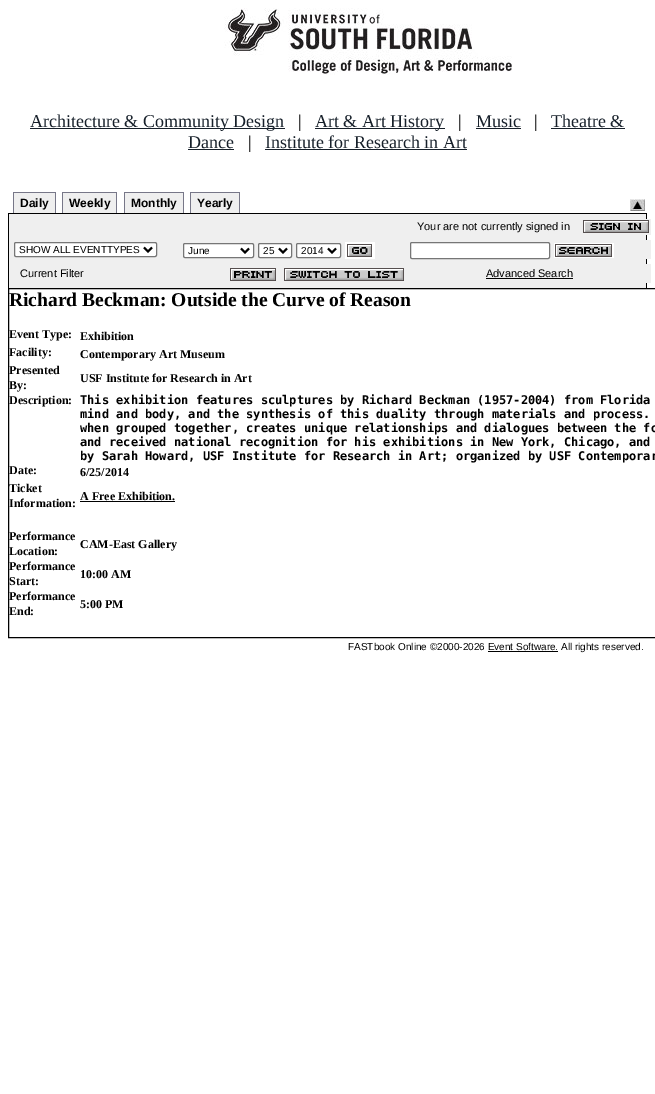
%!PS
<< /PageSize [655 1094] >> setpagedevice
/rgb { dup -16 bitshift 255 div exch dup -8 bitshift 255 and 255 div exch 255 and 255 div setrgbcolor } def
/font { [ exch dup neg 0 0 3 -1 roll 0 0 ] selectfont } def
/text { moveto show } def
/roundrect { 5 dict begin { /r /h /w /y /x } { exch def } forall
  x r add y moveto x w add y 2 copy h add r arct x w add y h add x 1 index r arct
  x y h add x y r arct x y 2 copy exch w add exch r arct closepath end } def
/picture { 5 dict begin { /h /w /y /x /name } { exch def } forall
  gsave x y translate w h scale
  w h 8 [w 0 0 h 0 0] name (r) file false 3 colorimage grestore end } def
0 1094 translate 1 -1 scale
4 setmiterlimit
/s1 { /LiberationSerif-Regular 18 font 16#17202A rgb } def
/s2 { /LiberationSerif-Regular 18 font 16#000000 rgb } def
/s3 { /LiberationSans-Bold 12 font 16#000000 rgb } def
/s4 { /LiberationSans-Regular 11 font 16#000000 rgb } def
/s5 { /LiberationSans-Regular 10 font 16#000000 rgb } def
/s6 { /LiberationSerif-Bold 19.5 font 16#000000 rgb } def
/s7 { /LiberationSerif-Bold 12 font 16#000000 rgb } def
/s8 { /DejaVuSansMono-Bold 12 font 16#000000 rgb } def
16#FFFFFF rgb
0 0 655 1094 rectfill
(pic1.raw) 224 8 288 67 picture
16#17202A rgb
30 128 255 1 rectfill
s1
(Architecture & Community Design) 30 127 text
s2
(|) 298 127 text
16#17202A rgb
315 128 130 1 rectfill
(Art & Art History) 315 127 text
s2
(|) 458 127 text
s1
(Music) 476 127 text
476 128 45 1 rectfill
s2
(|) 534 127 text
s1
(Theatre &) 551 127 text
551 128 74 1 rectfill
(Dance) 188 148 text
188 149 46 1 rectfill
s2
(|) 248 148 text
s1
(Institute for Research in Art) 265 148 text
265 149 202 1 rectfill
16#EFEFEF rgb
14 193 41 20 rectfill
s3
(Daily) 20 207 text
16#777788 rgb
13 192 43 1 rectfill
55 192 1 21 rectfill
13 192 1 21 rectfill
16#EFEFEF rgb
63 193 53 20 rectfill
s3
(Weekly) 69 207 text
16#777788 rgb
62 192 55 1 rectfill
116 192 1 21 rectfill
62 192 1 21 rectfill
16#EFEFEF rgb
125 193 58 20 rectfill
s3
(Monthly) 131 207 text
16#777788 rgb
124 192 60 1 rectfill
183 192 1 21 rectfill
124 192 1 21 rectfill
16#EFEFEF rgb
191 193 48 20 rectfill
s3
(Yearly) 197 207 text
16#777788 rgb
190 192 50 1 rectfill
239 192 1 21 rectfill
190 192 1 21 rectfill
(pic2.raw) 630 199 15 12 picture
16#EFEFEF rgb
9 214 637 74 rectfill
16#000000 rgb
8 213 639 1 rectfill
646 213 1 75 rectfill
8 213 1 75 rectfill
16#EFEFEF rgb
646 219 5 16 rectfill
s4
(Your are not currently signed in) 417 230 text
(pic3.raw) 583 220 66 13 picture
16#EFEFEF rgb
646 240 5 19 rectfill
16#FFFFFF rgb
14.5 242.5 142 14 1.5 roundrect gsave fill grestore
16#767676 rgb
stroke
16#000000 rgb
2 setlinewidth
144 247.5 moveto 148 251.5 lineto 152 247.5 lineto stroke
s5
(SHOW ALL EVENTTYPES) 19 253 text
16#FFFFFF rgb
183.5 243.5 70 14 1.5 roundrect gsave fill grestore
16#767676 rgb
1 setlinewidth
stroke
16#000000 rgb
2 setlinewidth
241 248.5 moveto 245 252.5 lineto 249 248.5 lineto stroke
(June) 188 254 text
16#FFFFFF rgb
258.5 243.5 33 14 1.5 roundrect gsave fill grestore
16#767676 rgb
1 setlinewidth
stroke
16#000000 rgb
2 setlinewidth
279 248.5 moveto 283 252.5 lineto 287 248.5 lineto stroke
(25) 263 254 text
16#FFFFFF rgb
296.5 243.5 44 14 1.5 roundrect gsave fill grestore
16#767676 rgb
1 setlinewidth
stroke
16#000000 rgb
2 setlinewidth
328 248.5 moveto 332 252.5 lineto 336 248.5 lineto stroke
(2014) 301 254 text
16#FFFFFF rgb
345 242 30 17 rectfill
(pic4.raw) 347 244 25 13 picture
410.5 242.5 139 16 1.5 roundrect gsave fill grestore
16#767676 rgb
1 setlinewidth
stroke
16#FFFFFF rgb
554 243 60 15 rectfill
(pic5.raw) 555 244 57 13 picture
16#EFEFEF rgb
646 264 5 19 rectfill
s4
(Current Filter) 20 277 text
(pic6.raw) 230 268 46 13 picture
(pic7.raw) 284 268 120 13 picture
(Advanced Search) 486 277 text
486 278 87 1 rectfill
8.5 288.5 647 349 rectstroke
s6
(Richard Beckman: Outside the Curve of Reason) 9 306 text
s7
(Event Type:) 9 338 text
(Exhibition) 80 340 text
(Facility:) 9 356 text
(Contemporary Art Museum) 80 358 text
(Presented) 9 374 text
(By:) 9 389 text
(USF Institute for Research in Art) 80 382 text
(Description:) 9 404 text
s8
(This exhibition features sculptures by Richard Beckman \(1957-2004\) from Florida) 80 404 text
(mind and body, and the synthesis of this duality through materials and process.) 80 418 text
(when grouped together, creates unique relationships and dialogues between the fo) 80 432 text
(and received national recognition for his exhibitions in New York, Chicago, and) 80 446 text
(by Sarah Howard, USF Institute for Research in Art; organized by USF Contemporar) 80 460 text
s7
(Date:) 9 474 text
(6/25/2014) 80 476 text
(Ticket) 9 492 text
(Information:) 9 507 text
(A Free Exhibition.) 80 500 text
80 501 95 1 rectfill
(Performance) 9 540 text
(Location:) 9 555 text
(CAM-East Gallery) 80 548 text
(Performance) 9 570 text
(Start:) 9 585 text
(10:00 AM) 80 578 text
(Performance) 9 600 text
(End:) 9 615 text
(5:00 PM) 80 608 text
s5
(FASTbook Online ©2000-2026 Event Software. All rights reserved.) 348 650 text
488 651 70 1 rectfill
showpage
